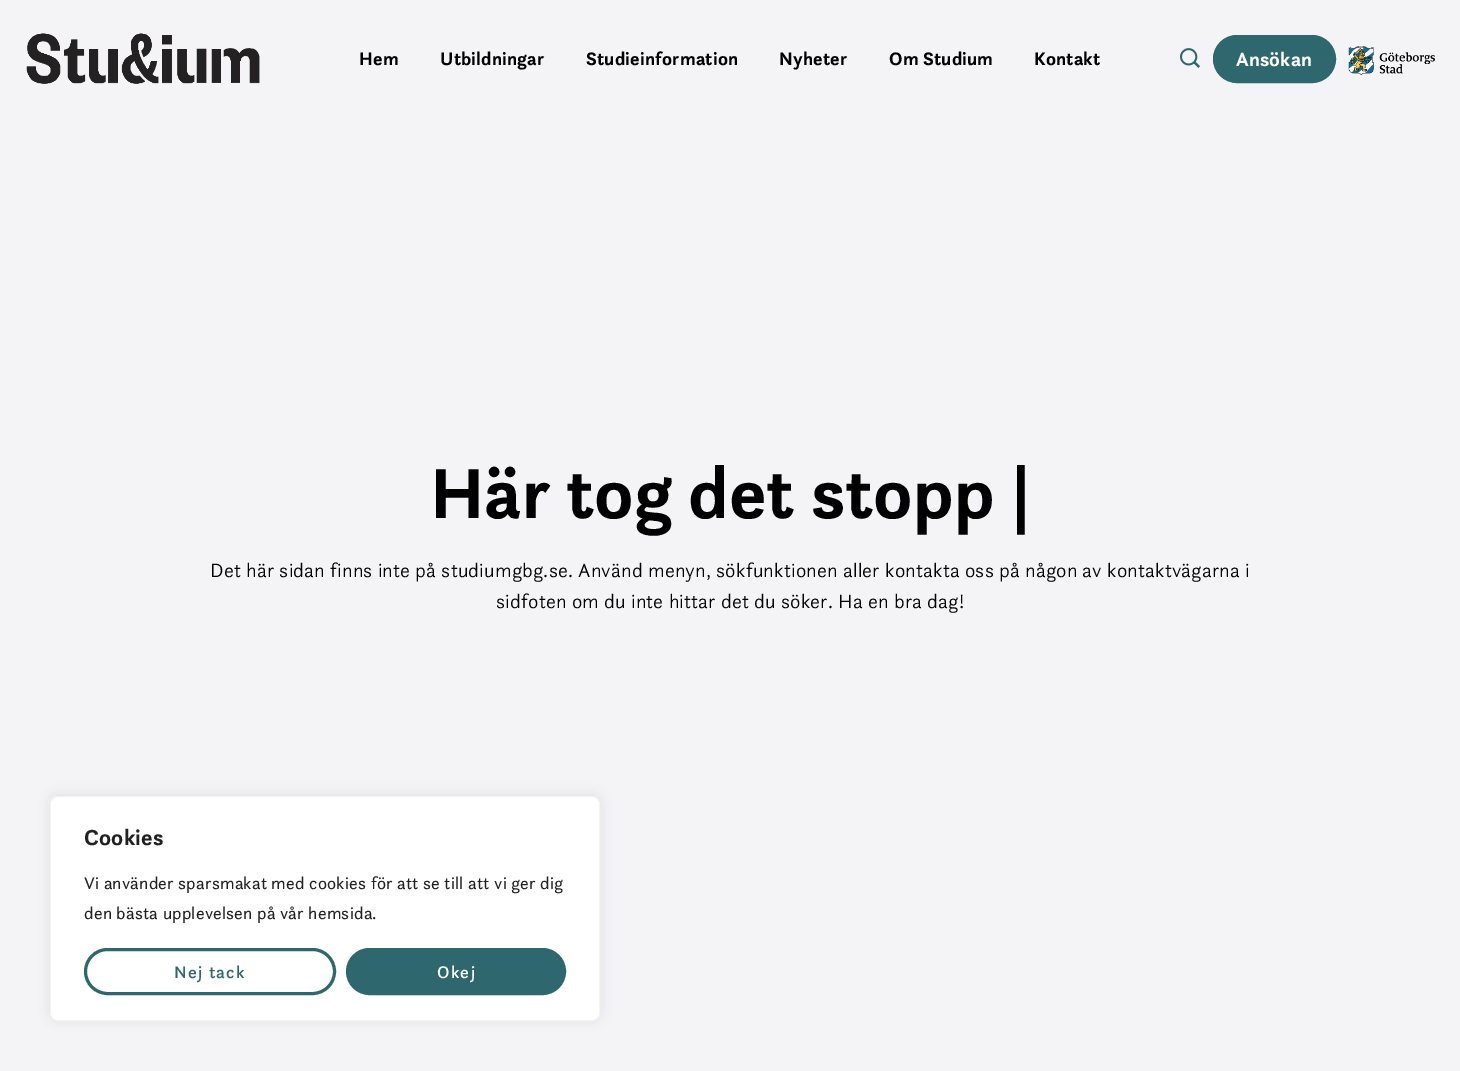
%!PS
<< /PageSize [1460 1071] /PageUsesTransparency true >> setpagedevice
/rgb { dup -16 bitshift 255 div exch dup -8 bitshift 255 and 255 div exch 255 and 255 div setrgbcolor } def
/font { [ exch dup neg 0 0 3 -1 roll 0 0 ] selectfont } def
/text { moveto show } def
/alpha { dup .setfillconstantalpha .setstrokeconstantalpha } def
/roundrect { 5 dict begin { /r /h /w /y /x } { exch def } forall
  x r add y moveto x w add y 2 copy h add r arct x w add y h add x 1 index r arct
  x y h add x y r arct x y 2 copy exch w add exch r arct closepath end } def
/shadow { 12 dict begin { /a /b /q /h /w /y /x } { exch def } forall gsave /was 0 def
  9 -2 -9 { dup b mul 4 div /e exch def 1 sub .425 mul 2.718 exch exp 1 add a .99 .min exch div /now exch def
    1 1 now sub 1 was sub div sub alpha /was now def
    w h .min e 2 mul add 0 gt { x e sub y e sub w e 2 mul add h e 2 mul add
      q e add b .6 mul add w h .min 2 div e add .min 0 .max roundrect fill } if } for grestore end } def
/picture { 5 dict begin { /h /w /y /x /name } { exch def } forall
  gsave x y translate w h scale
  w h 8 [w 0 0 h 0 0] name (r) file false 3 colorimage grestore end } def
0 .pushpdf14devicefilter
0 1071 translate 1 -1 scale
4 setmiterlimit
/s1 { /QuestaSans-Bold 73.75 font 16#000000 rgb } def
16#F4F3F5 rgb
0 0 1460 1071 rectfill
(pic1.raw) 26 33 234 51 picture
/QuestaSans-Bold 18.75 font
16#000000 rgb
359 65 moveto 0.2 0 (Hem) ashow
440 65 moveto 0.2 0 (Utbildningar) ashow
586 65 moveto 0.2 0 (Studieinformation) ashow
779 65 moveto 0.2 0 (Nyheter) ashow
889 65 moveto 0.2 0 (Om Studium) ashow
1034 65 moveto 0.2 0 (Kontakt) ashow
(pic2.raw) 1180 48 20 20 picture
16#2F676E rgb
1213.5 35.5 122 47 23.5 roundrect gsave fill grestore
stroke
/QuestaSans-Bold 20 font
16#FFFFFF rgb
1236 66 moveto 0.2 0 (Ansökan) ashow
(pic3.raw) 1348 46 87 29 picture
s1
(Här tog det stopp |) 430 518 text
/QuestaSans-Light 20 font
210 577 moveto 0.2 0 (Det här sidan finns inte på studiumgbg.se. Använd menyn, sökfunktionen aller kontakta oss på någon av kontaktvägarna i) ashow
496 608 moveto 0.2 0 (sidfoten om du inte hittar det du söker. Ha en bra dag!) ashow
16#ACABAB rgb
50 795 550 225 8 6 0.3 shadow
16#FFFFFF rgb
50.5 796.5 549 224 7.5 roundrect gsave fill grestore
16#F4F4F4 rgb
stroke
/QuestaSans-Bold 22.5 font
16#212121 rgb
84 845 moveto 0.2 0 (Cookies) ashow
/QuestaSans-Regular 17.5 font
84 889 moveto 0.2 0 (Vi använder sparsmakat med cookies för att se till att vi ger dig) ashow
84 919 moveto 0.2 0 (den bästa upplevelsen på vår hemsida.) ashow
16#2F676E rgb
3 setlinewidth
85.5 949.5 249 44 22 roundrect stroke
/QuestaSans-Medium 17.5 font
174 978 moveto 1.25 0 (Nej tack) ashow
347.5 949.5 217 44 22 roundrect gsave fill grestore
stroke
16#FFFFFF rgb
437 978 moveto 1.25 0 (Okej) ashow
.poppdf14devicefilter showpage
